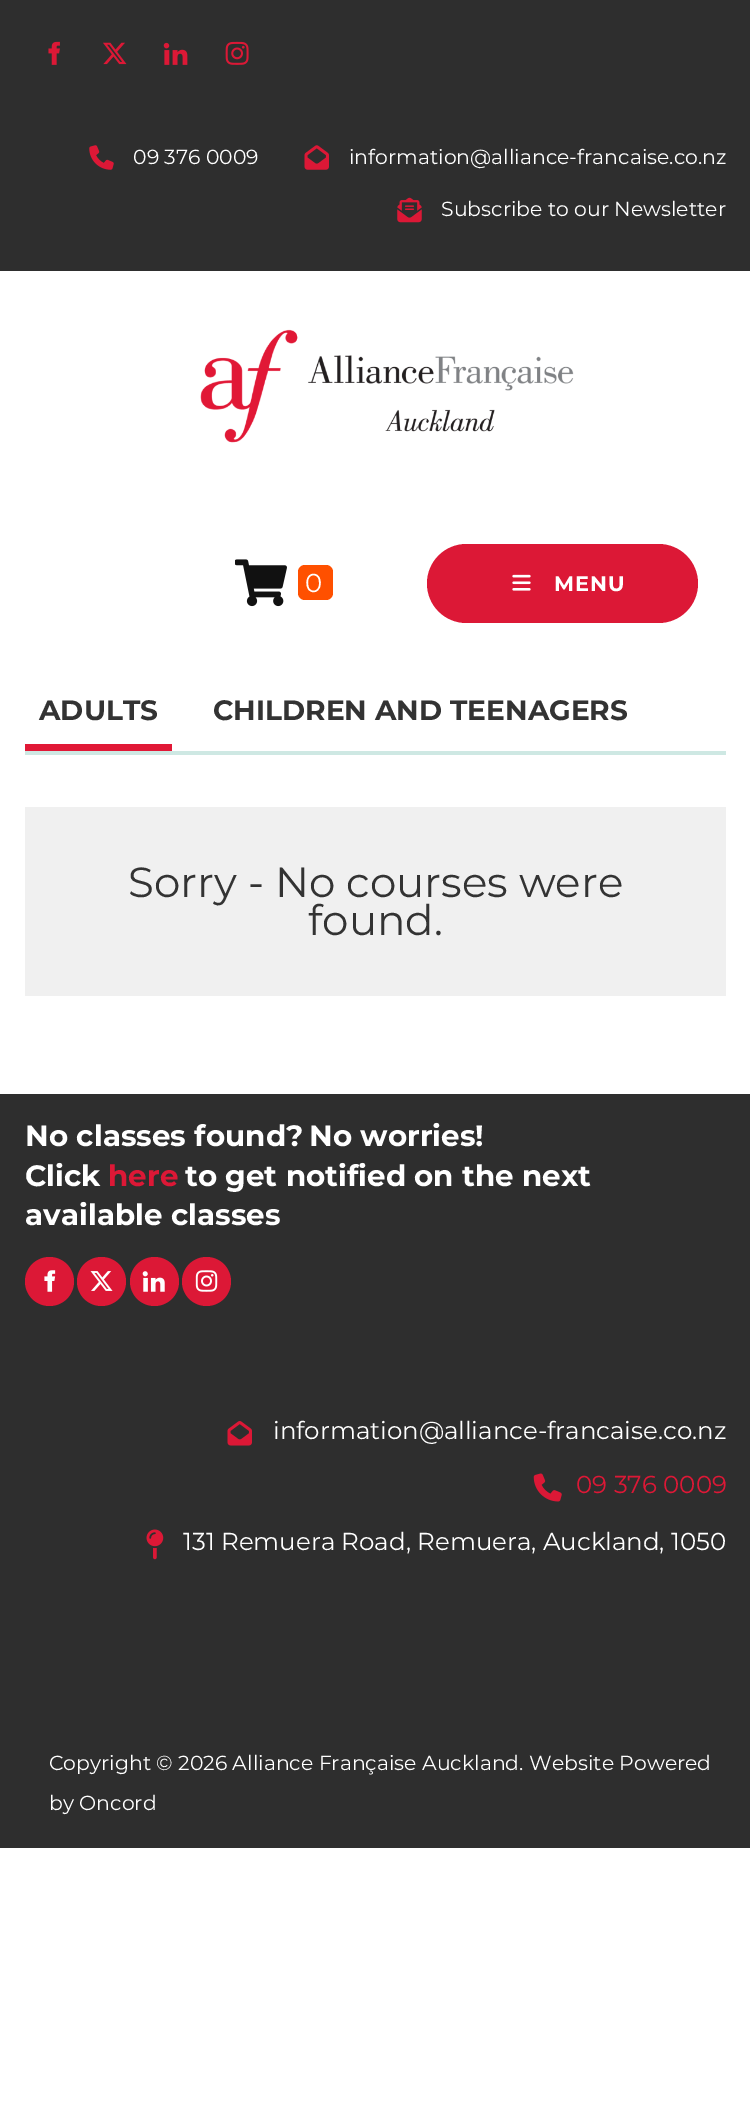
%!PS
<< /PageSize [750 2101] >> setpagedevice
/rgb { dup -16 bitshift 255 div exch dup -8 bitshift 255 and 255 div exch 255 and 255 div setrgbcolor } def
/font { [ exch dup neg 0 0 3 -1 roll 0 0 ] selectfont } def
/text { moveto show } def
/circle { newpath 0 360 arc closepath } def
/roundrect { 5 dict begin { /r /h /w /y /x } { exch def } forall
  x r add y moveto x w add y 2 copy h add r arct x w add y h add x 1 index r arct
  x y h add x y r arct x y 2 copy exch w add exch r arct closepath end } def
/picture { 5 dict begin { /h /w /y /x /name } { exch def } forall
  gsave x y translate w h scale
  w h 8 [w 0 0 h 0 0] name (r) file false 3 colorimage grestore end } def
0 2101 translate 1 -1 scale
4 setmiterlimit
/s1 { /Montserrat-Regular 20.4 font 16#FFFFFF rgb } def
/s2 { /Montserrat-Regular 26 font 16#FFFFFF rgb } def
/s3 { /Montserrat-Bold 28 font 16#333333 rgb } def
/s4 { /Montserrat-Regular 42 font 16#333333 rgb } def
/s5 { /Montserrat-Bold 29.4 font 16#FFFFFF rgb } def
/s6 { /Montserrat-Bold 29.4 font 16#DC1836 rgb } def
/s7 { /Montserrat-Regular 24.5 font 16#FFFFFF rgb } def
/s8 { /Montserrat-Regular 24.5 font 16#DC1836 rgb } def
16#FFFFFF rgb
0 0 750 2101 rectfill
16#2E2E2E rgb
0 0 750 271 rectfill
(pic1.raw) 48 41 12 24 picture
(pic2.raw) 103 42 24 23 picture
(pic3.raw) 163 42 25 23 picture
(pic4.raw) 225 41 24 24 picture
(pic5.raw) 89 145 25 25 picture
s1
(09 376 0009) 133 164 text
(pic6.raw) 304 145 25 25 picture
(information@alliance-francaise.co.nz) 349 164 text
(pic7.raw) 397 197 25 26 picture
(Subscribe to our Newsletter) 441 216 text
(pic8.raw) 200 329 374 114 picture
(pic9.raw) 235 559 52 48 picture
16#FF5000 rgb
298 565 35 35 7 roundrect fill
s2
(0) 305 592 text
16#DC1836 rgb
427 544 271 79 39.5 roundrect fill
(pic10.raw) 512 574 19 17 picture
/Montserrat-Bold 21 font
16#FFFFFF rgb
554 591 moveto 1 0 (MENU) ashow
16#CEE8E3 rgb
25 751 701 4 rectfill
16#E11836 rgb
25 744 147 7 rectfill
s3
(ADULTS) 39 720 text
(CHILDREN AND TEENAGERS) 213 720 text
16#F0F0F0 rgb
25 807 701 189 rectfill
s4
(Sorry - No courses were) 128 897 text
(found.) 308 935 text
16#2E2E2E rgb
0 1094 750 754 rectfill
s5
(No classes found?) 25 1146 text
(No worries!) 309 1146 text
(Click) 25 1186 text
s6
(here) 108 1186 text
s5
(to get notified on the next) 185 1186 text
(available classes) 25 1225 text
16#DC1836 rgb
49.5 1281.5 24.5 circle fill
(pic11.raw) 44 1270 12 22 picture
101.5 1281.5 24.5 circle fill
(pic12.raw) 90 1271 23 20 picture
154.5 1281.5 24.5 circle fill
(pic13.raw) 142 1271 23 21 picture
206.5 1281.5 24.5 circle fill
(pic14.raw) 195 1270 23 22 picture
(pic15.raw) 227 1421 25 25 picture
s7
(information@alliance-francaise.co.nz) 273 1439 text
(pic16.raw) 533 1473 29 29 picture
s8
(09 376 0009) 576 1493 text
(pic17.raw) 146 1529 18 31 picture
s7
(131 Remuera Road, Remuera, Auckland, 1050) 183 1550 text
s1
(Copyright © 2026 Alliance Française Auckland.) 49 1770 text
(Website Powered) 529 1770 text
(by Oncord) 49 1810 text
showpage
